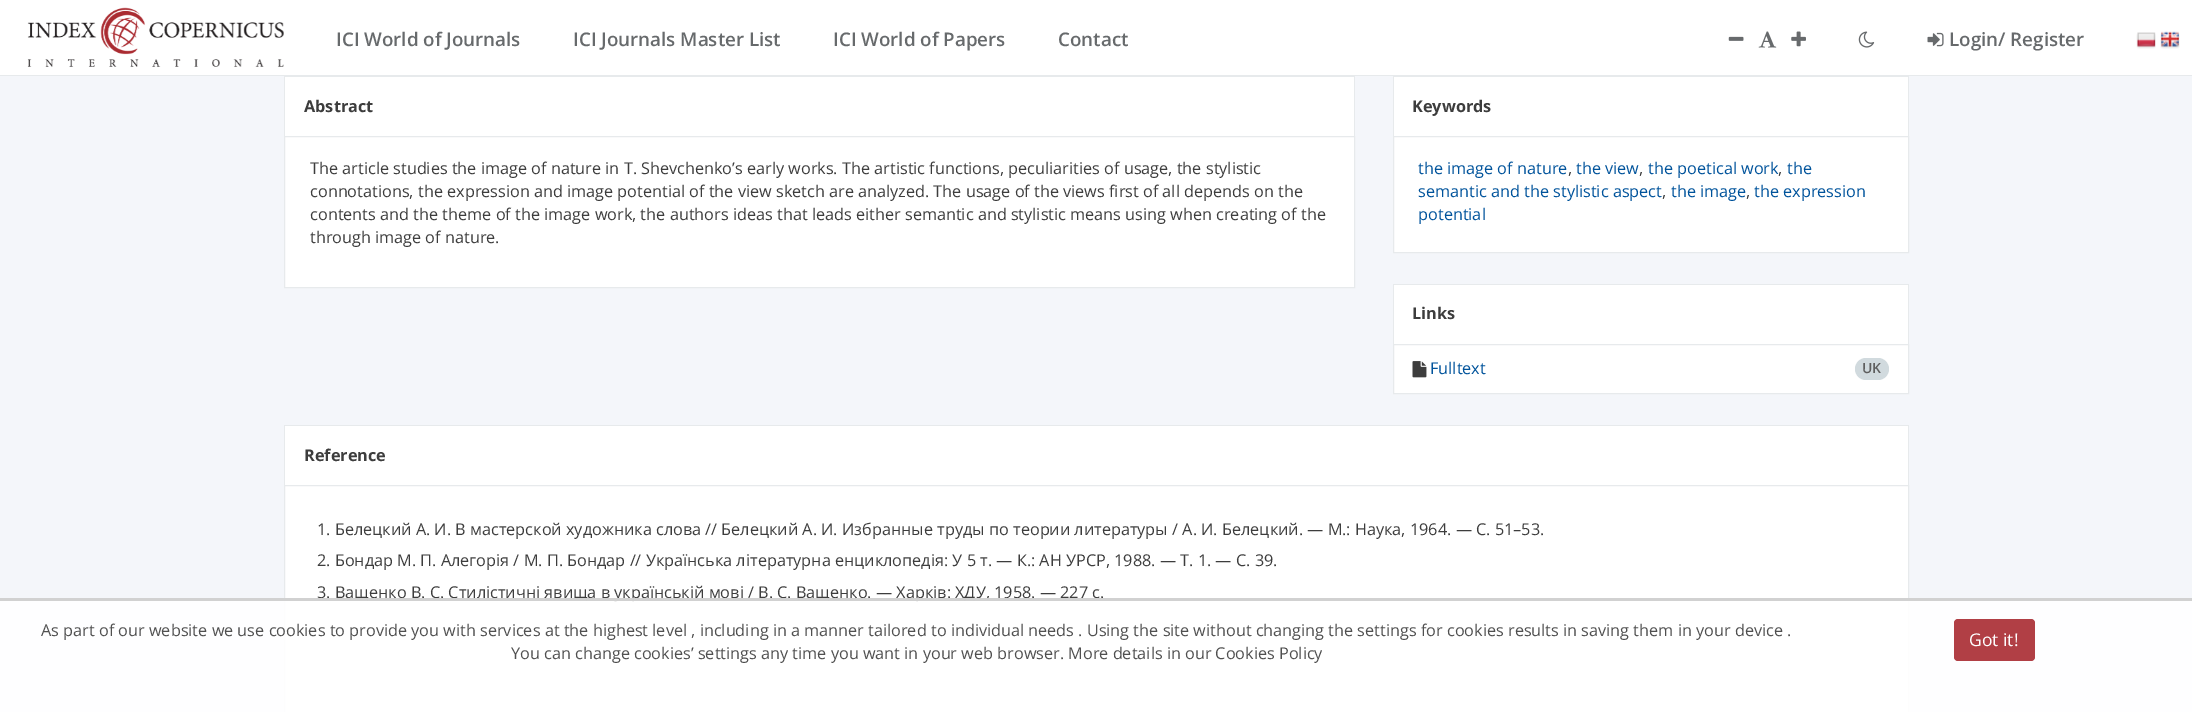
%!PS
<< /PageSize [2192 712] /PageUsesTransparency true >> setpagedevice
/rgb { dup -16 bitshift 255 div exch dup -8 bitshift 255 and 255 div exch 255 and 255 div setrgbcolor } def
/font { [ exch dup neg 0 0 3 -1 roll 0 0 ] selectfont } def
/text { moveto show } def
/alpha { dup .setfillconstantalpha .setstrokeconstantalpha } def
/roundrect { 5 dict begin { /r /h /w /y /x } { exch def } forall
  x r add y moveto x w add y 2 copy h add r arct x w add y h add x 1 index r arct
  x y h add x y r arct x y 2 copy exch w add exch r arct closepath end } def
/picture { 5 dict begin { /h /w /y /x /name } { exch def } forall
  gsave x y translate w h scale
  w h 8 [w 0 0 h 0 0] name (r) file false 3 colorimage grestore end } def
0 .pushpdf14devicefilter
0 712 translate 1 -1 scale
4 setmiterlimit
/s1 { /OpenSans-SemiBold 18.75 font 16#676A6C rgb } def
/s2 { /OpenSans-Bold 16.25 font 16#3D3D3D rgb } def
/s3 { /OpenSans-Regular 16.25 font 16#3D3D3D rgb } def
/s4 { /OpenSans-Regular 16.25 font 16#00539B rgb } def
/s5 { /OpenSans-SemiBold 14 font 16#5E5E5E rgb } def
/s6 { /OpenSans-Regular 16.25 font 16#505050 rgb } def
/s7 { /OpenSans-Regular 17.5 font 16#FEFEFF rgb } def
16#F4F6FA rgb
0 0 2192 712 rectfill
16#FFFFFF rgb
0 0 2192 75 rectfill
16#E7EAEC rgb
0 75 2192 1 rectfill
(pic1.raw) 27 7 257 60 picture
s1
(ICI World of Journals) 336 46 text
(ICI Journals Master List) 573 46 text
(ICI World of Papers) 833 46 text
(Contact) 1058 46 text
(pic2.raw) 1728 36 16 5 picture
(pic3.raw) 1758 31 19 17 picture
(pic4.raw) 1791 31 15 16 picture
(pic5.raw) 1858 31 17 17 picture
(pic6.raw) 1927 32 17 15 picture
(Login/ Register) 1949 46 text
(pic7.raw) 2136 32 20 17 picture
(pic8.raw) 2160 31 20 18 picture
16#FFFFFF rgb
285 77 1069 59 rectfill
16#E7EAEC rgb
284 76 1071 1 rectfill
1354 76 1 60 rectfill
284 76 1 60 rectfill
s2
(Abstract) 304 112 text
16#FFFFFF rgb
284.5 136.5 moveto 1354.5 136.5 lineto 1354.5 287.5 lineto 284.5 287.5 lineto closepath gsave fill grestore
16#E7EAEC rgb
stroke
s3
(The article studies the image of nature in T. Shevchenko’s early works. The artistic functions, peculiarities of usage, the stylistic) 310 174 text
(connotations, the expression and image potential of the view sketch are analyzed. The usage of the views first of all depends on the) 310 197 text
(contents and the theme of the image work, the authors ideas that leads either semantic and stylistic means using when creating of the) 310 220 text
(through image of nature.) 310 243 text
16#FFFFFF rgb
1394 77 514 59 rectfill
16#E7EAEC rgb
1393 76 516 1 rectfill
1908 76 1 60 rectfill
1393 76 1 60 rectfill
s2
(Keywords) 1412 112 text
16#FFFFFF rgb
1393.5 136.5 moveto 1908.5 136.5 lineto 1908.5 252.5 lineto 1393.5 252.5 lineto closepath gsave fill grestore
16#E7EAEC rgb
stroke
s4
(the image of nature) 1418 174 text
s3
(,) 1568 174 text
s4
(the view) 1576 174 text
s3
(,) 1639 174 text
s4
(the poetical work) 1648 174 text
s3
(,) 1778 174 text
s4
(the) 1787 174 text
(semantic and the stylistic aspect) 1418 197 text
s3
(,) 1662 197 text
s4
(the image) 1671 197 text
s3
(,) 1746 197 text
s4
(the expression) 1754 197 text
(potential) 1418 220 text
16#FFFFFF rgb
1394 285 514 59 rectfill
16#E7EAEC rgb
1393 284 516 1 rectfill
1908 284 1 60 rectfill
1393 284 1 60 rectfill
s2
(Links) 1412 319 text
16#FFFFFF rgb
1393.5 344.5 moveto 1908.5 344.5 lineto 1908.5 393.5 lineto 1393.5 393.5 lineto closepath gsave fill grestore
16#E7EAEC rgb
stroke
(pic9.raw) 1412 361 15 17 picture
s4
(Fulltext) 1430 374 text
16#D1DADE rgb
1855 358 34 22 11 roundrect fill
s5
(UK) 1862 373 text
16#FFFFFF rgb
285 426 1623 59 rectfill
16#E7EAEC rgb
284 425 1625 1 rectfill
1908 425 1 60 rectfill
284 425 1 60 rectfill
s2
(Reference) 304 461 text
16#FFFFFF rgb
284.5 485.5 moveto 1908.5 485.5 lineto 1908.5 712.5 lineto 284.5 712.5 lineto closepath gsave fill grestore
16#E7EAEC rgb
stroke
s3
(1. Белецкий А. И. В мастерской художника слова // Белецкий А. И. Избранные труды по теории литературы / А. И. Белецкий. — М.: Наука, 1964. — С. 51–53.) 317 535 text
(2. Бондар М. П. Алегорія / М. П. Бондар // Українська літературна енциклопедія: У 5 т. — К.: АН УРСР, 1988. — Т. 1. — С. 39.) 317 566 text
(3. Ващенко В. С. Стилістичні явища в українській мові / В. С. Ващенко. — Харків: ХДУ, 1958. — 227 с.) 317 598 text
0.9 alpha
16#FFFFFF rgb
0 598 2192 114 rectfill
16#CCCCCC rgb
0 598 2192 3 rectfill
1 alpha
s6
(As part of our website we use cookies to provide you with services at the highest level , including in a manner tailored to individual needs . Using the site without changing the settings for cookies results in saving them in your device .) 41 636 text
(You can change cookies’ settings any time you want in your web browser. More details in our Cookies Policy) 511 659 text
16#B13F45 rgb
1954 619 81 42 4 roundrect fill
s7
(Got it!) 1969 646 text
.poppdf14devicefilter showpage
